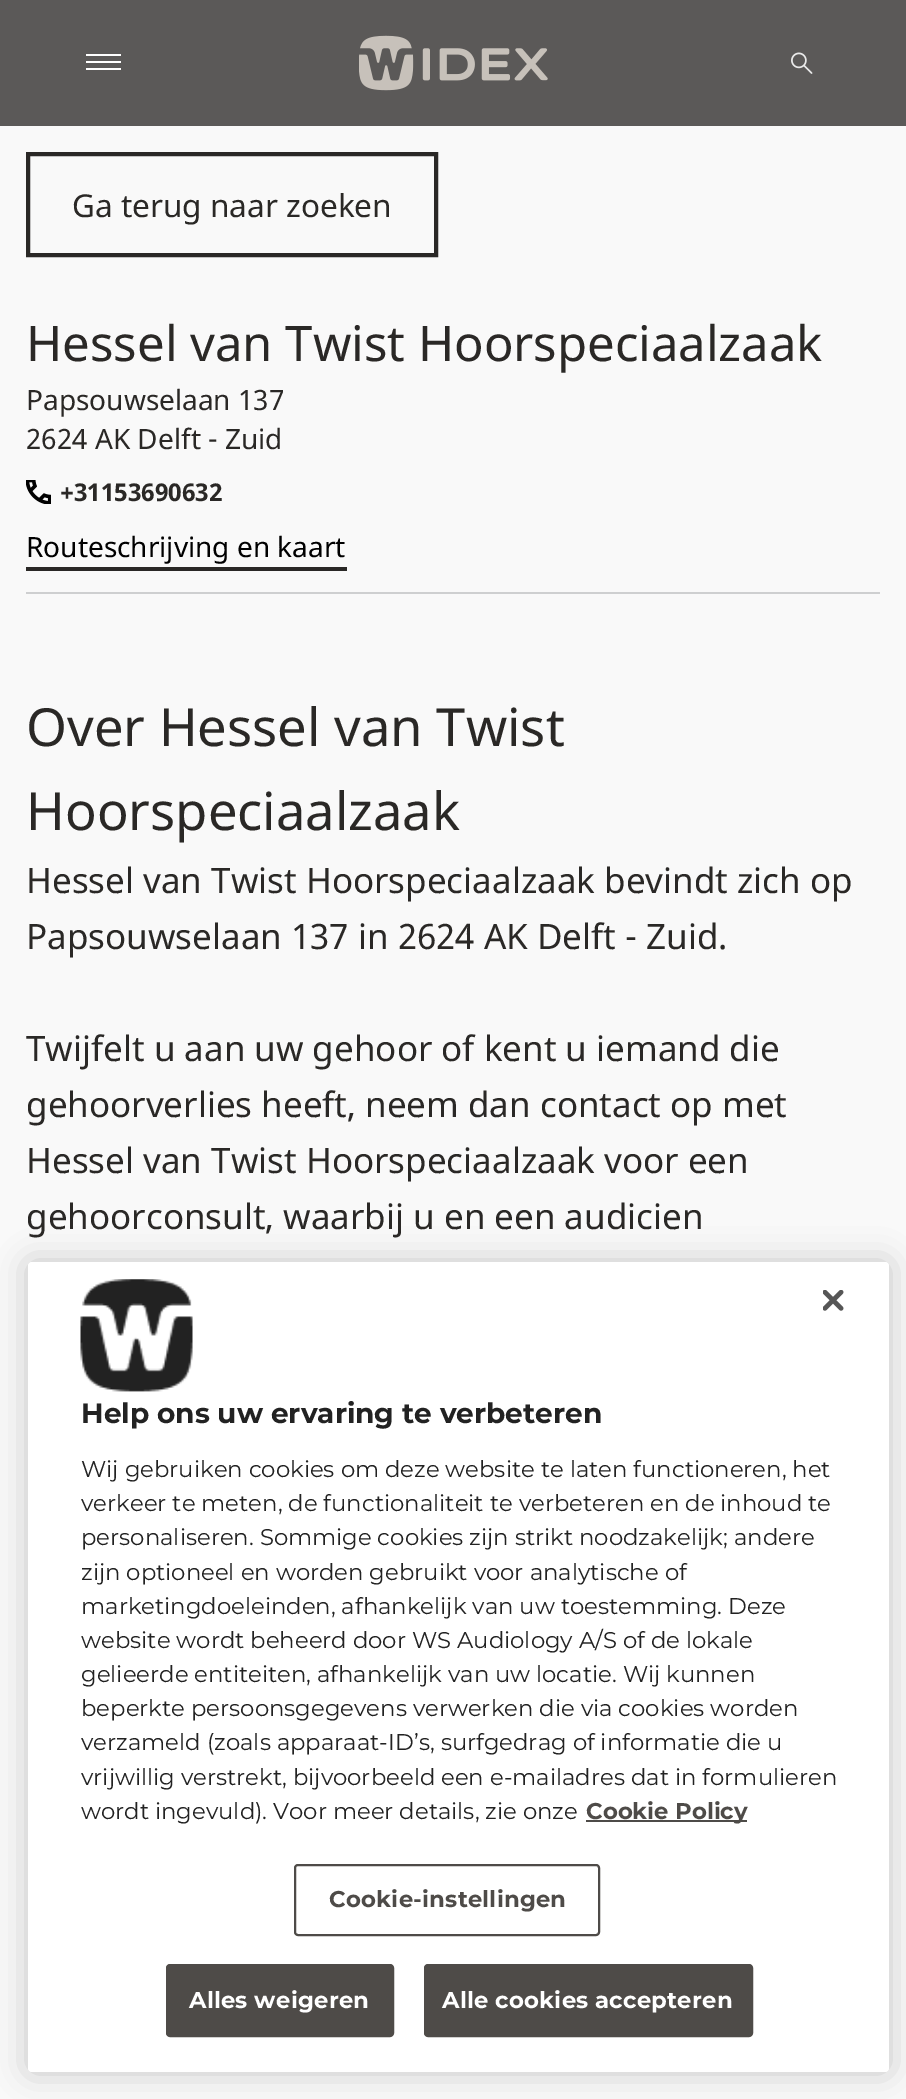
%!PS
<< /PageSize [906 2099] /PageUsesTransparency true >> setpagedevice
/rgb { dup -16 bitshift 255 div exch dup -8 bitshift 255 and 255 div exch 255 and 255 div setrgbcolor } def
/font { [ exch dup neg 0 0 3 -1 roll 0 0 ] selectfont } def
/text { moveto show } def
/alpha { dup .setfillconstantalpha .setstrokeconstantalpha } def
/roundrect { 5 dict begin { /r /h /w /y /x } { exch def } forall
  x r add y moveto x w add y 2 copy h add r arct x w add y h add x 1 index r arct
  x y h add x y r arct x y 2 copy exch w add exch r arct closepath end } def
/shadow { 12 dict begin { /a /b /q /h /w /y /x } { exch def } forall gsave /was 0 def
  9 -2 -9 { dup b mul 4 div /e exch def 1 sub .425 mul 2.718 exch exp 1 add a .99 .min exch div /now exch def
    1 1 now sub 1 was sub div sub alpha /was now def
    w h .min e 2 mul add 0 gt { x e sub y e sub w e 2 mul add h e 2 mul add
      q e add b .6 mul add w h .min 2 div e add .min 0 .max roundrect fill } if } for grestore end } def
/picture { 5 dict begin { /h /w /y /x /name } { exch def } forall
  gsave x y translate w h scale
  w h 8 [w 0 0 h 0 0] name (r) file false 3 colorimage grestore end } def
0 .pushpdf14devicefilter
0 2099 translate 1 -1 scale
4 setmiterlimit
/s1 { /NotoSans-Regular 31.5 font 16#2A2826 rgb } def
/s2 { /NotoSans-Regular 49 font 16#2A2826 rgb } def
/s3 { /NotoSans-Regular 28 font 16#2A2826 rgb } def
/s4 { /NotoSans-Bold 24.5 font 16#2A2826 rgb } def
/s5 { /NotoSans-Regular 28 font 16#000000 rgb } def
/s6 { /NotoSans-Regular 52.5 font 16#2A2826 rgb } def
/s7 { /NotoSans-Regular 35 font 16#2A2826 rgb } def
/s8 { /Montserrat-Bold 28 font 16#222222 rgb } def
/s9 { /Montserrat-Regular 22.75 font 16#222222 rgb } def
/s10 { /Montserrat-Bold 22.75 font 16#4E4B48 rgb } def
16#F9F9F9 rgb
0 0 906 2099 rectfill
16#5B5958 rgb
0 0 906 126 rectfill
16#FFFFFF rgb
86 61 35 2 rectfill
86 54 35 2 rectfill
86 68 35 2 rectfill
(pic1.raw) 359 35 189 56 picture
(pic2.raw) 791 52 22 22 picture
16#2A2826 rgb
4 setlinewidth
28 154 408 101 rectstroke
s1
(Ga terug naar zoeken) 72 217 text
16#CECFD0 rgb
26 592 854 2 rectfill
s2
(Hessel van Twist Hoorspeciaalzaak) 26 361 text
s3
(Papsouwselaan 137) 26 410 text
(2624 AK Delft - Zuid) 26 449 text
(pic3.raw) 26 480 25 24 picture
s4
(+31153690632) 60 501 text
s5
(Routeschrijving en kaart) 26 557 text
16#2A2826 rgb
26 567 321 4 rectfill
s6
(Over Hessel van Twist) 26 746 text
(Hoorspeciaalzaak) 26 830 text
s7
(Hessel van Twist Hoorspeciaalzaak bevindt zich op) 26 893 text
(Papsouwselaan 137 in 2624 AK Delft - Zuid.) 26 949 text
(Twijfelt u aan uw gehoor of kent u iemand die) 26 1061 text
(gehoorverlies heeft, neem dan contact op met) 26 1117 text
(Hessel van Twist Hoorspeciaalzaak voor een) 26 1173 text
(gehoorconsult, waarbij u en een audicien) 26 1229 text
16#000000 rgb
28 1262 861 810 4 16 0.2 shadow
16#FFFFFF rgb
28 1262 861 810 4 roundrect fill
(pic4.raw) 823 1290 21 21 picture
(pic5.raw) 80 1279 113 113 picture
s8
(Help ons uw ervaring te verbeteren) 81 1423 text
s9
(Wij gebruiken cookies om deze website te laten functioneren, het) 81 1477 text
(verkeer te meten, de functionaliteit te verbeteren en de inhoud te) 81 1511 text
(personaliseren. Sommige cookies zijn strikt noodzakelijk; andere) 81 1545 text
(zijn optioneel en worden gebruikt voor analytische of) 81 1580 text
(marketingdoeleinden, afhankelijk van uw toestemming. Deze) 81 1614 text
(website wordt beheerd door WS Audiology A/S of de lokale) 81 1648 text
(gelieerde entiteiten, afhankelijk van uw locatie. Wij kunnen) 81 1682 text
(beperkte persoonsgegevens verwerken die via cookies worden) 81 1716 text
(verzameld \(zoals apparaat-ID’s, surfgedrag of informatie die u) 81 1750 text
(vrijwillig verstrekt, bijvoorbeeld een e-mailadres dat in formulieren) 81 1785 text
(wordt ingevuld\). Voor meer details, zie onze) 81 1819 text
16#4E4B48 rgb
586 1820 161 2 rectfill
s10
(Cookie Policy) 586 1819 text
2 setlinewidth
295 1865 304 70 3 roundrect stroke
329 1907 moveto 0.25 0 (Cookie-instellingen) ashow
167 1965 226 71 3 roundrect gsave fill grestore
stroke
16#FFFFFF rgb
189 2008 moveto 0.25 0 (Alles weigeren) ashow
16#4E4B48 rgb
425 1965 327 71 3 roundrect gsave fill grestore
stroke
16#FFFFFF rgb
442 2008 moveto 0.25 0 (Alle cookies accepteren) ashow
.poppdf14devicefilter showpage
